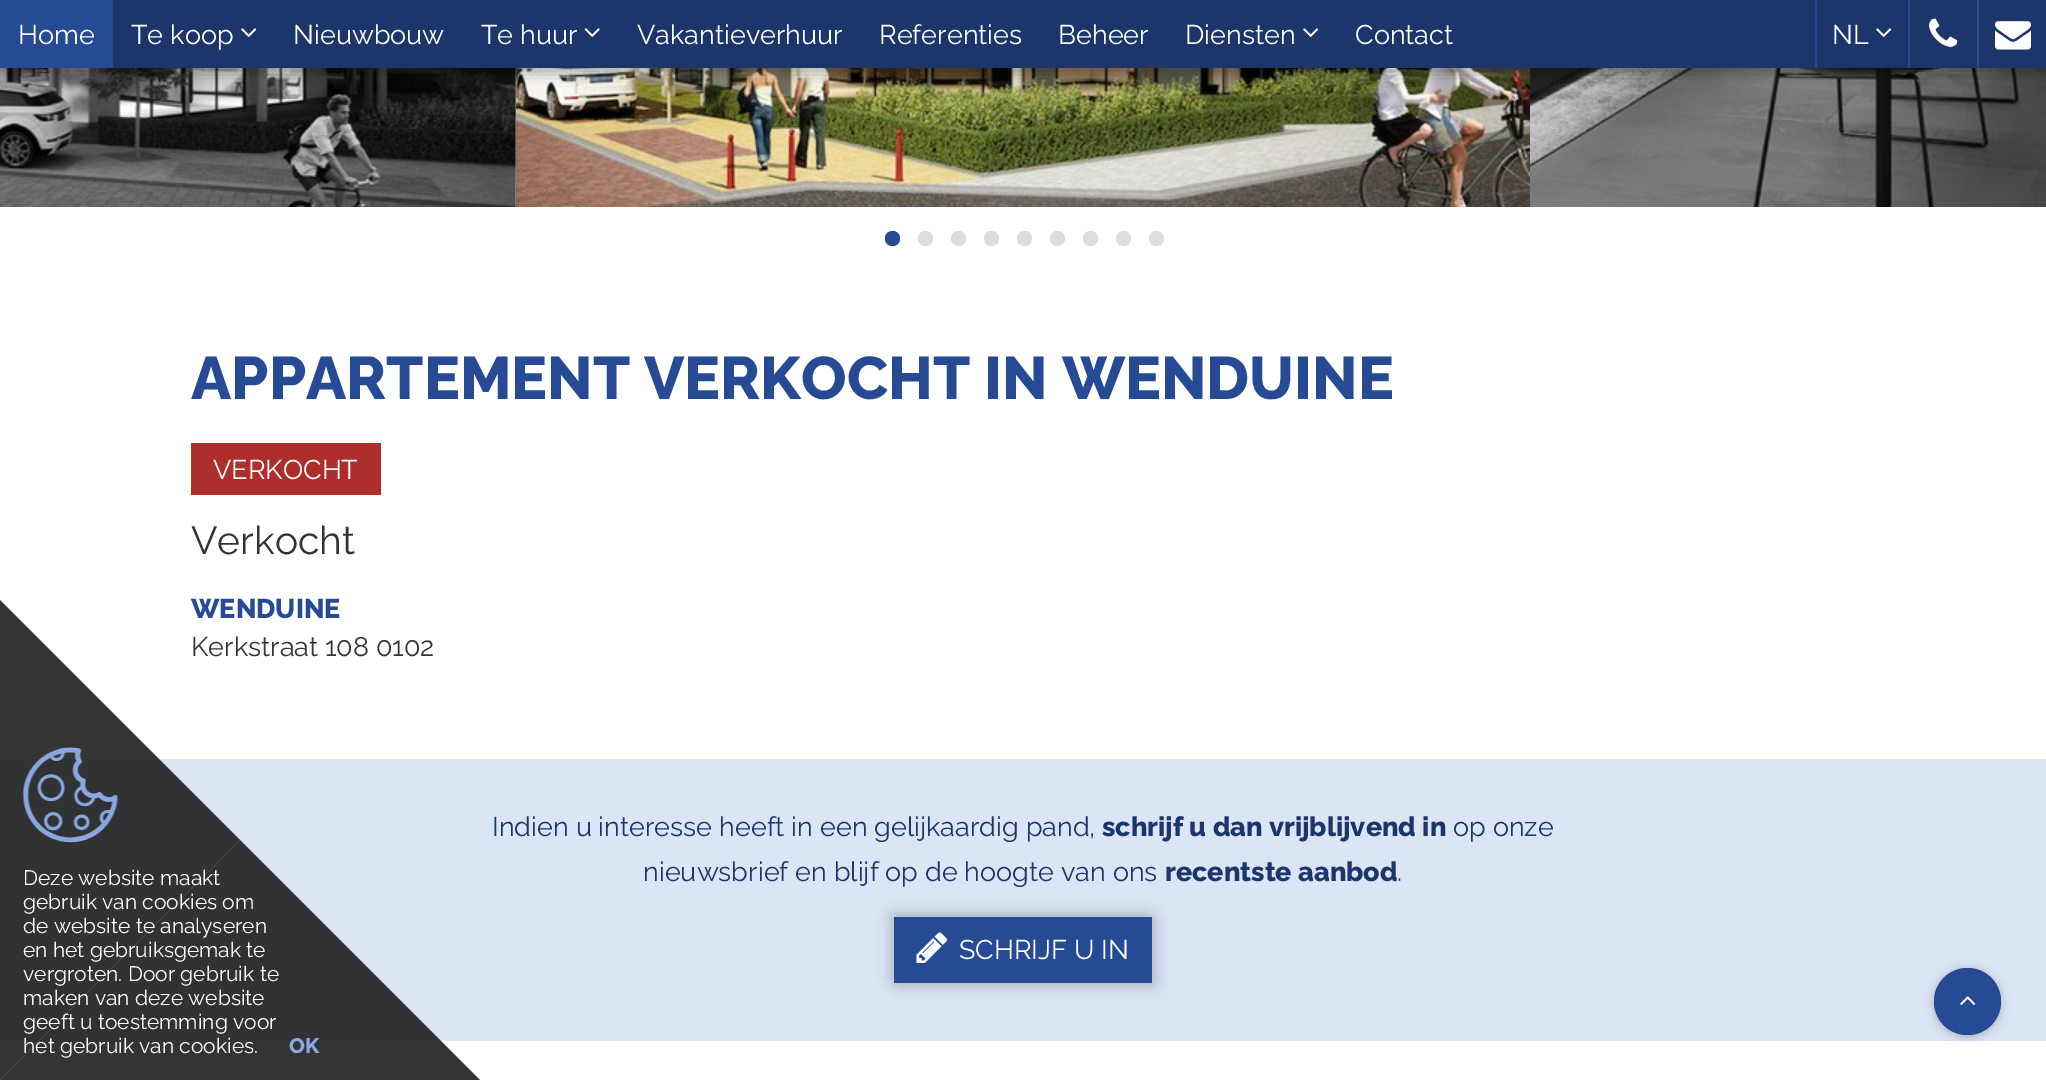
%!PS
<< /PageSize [2046 1080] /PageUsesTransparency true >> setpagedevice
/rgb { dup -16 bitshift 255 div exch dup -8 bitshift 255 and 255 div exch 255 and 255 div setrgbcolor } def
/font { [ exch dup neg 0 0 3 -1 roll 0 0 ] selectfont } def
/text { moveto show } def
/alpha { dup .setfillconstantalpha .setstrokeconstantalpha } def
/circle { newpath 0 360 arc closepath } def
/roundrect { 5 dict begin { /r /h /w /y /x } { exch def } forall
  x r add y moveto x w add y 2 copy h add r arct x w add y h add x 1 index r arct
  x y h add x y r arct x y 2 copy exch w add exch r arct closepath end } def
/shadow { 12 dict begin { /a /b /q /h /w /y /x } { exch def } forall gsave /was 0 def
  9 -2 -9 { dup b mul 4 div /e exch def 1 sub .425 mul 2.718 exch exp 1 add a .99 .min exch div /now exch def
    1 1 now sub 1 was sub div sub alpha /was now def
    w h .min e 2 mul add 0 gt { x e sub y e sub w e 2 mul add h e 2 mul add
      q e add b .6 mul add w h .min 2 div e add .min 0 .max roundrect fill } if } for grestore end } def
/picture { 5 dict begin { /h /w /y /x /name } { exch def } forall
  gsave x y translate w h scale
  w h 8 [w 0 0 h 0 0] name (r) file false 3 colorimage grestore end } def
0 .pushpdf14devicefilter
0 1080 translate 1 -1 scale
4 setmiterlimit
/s1 { /Raleway-Regular 27 font 16#FFFFFF rgb } def
/s2 { /Raleway-ExtraBold 60 font 16#264A94 rgb } def
/s3 { /Raleway-Regular 39 font 16#333333 rgb } def
/s4 { /Raleway-ExtraBold 27 font 16#264A94 rgb } def
/s5 { /Raleway-Regular 27 font 16#333333 rgb } def
/s6 { /Raleway-Regular 27 font 16#1C366B rgb } def
/s7 { /Raleway-ExtraBold 27 font 16#1C366B rgb } def
/s8 { /Raleway-Regular 21 font 16#FFFFFF rgb } def
/s9 { /Raleway-ExtraBold 21 font 16#8BA7E1 rgb } def
16#FFFFFF rgb
0 0 2046 1080 rectfill
(pic5.raw) 0 68 516 139 picture
(pic6.raw) 516 68 1014 139 picture
(pic7.raw) 1530 68 516 139 picture
16#000000 rgb
-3 0 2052 74 0 7.5 0.3 shadow
16#1C366B rgb
113 0 1933 68 rectfill
16#264A94 rgb
0 0 113 68 rectfill
s1
(Home) 18 44 text
(Te koop) 131 44 text
(pic1.raw) 241 28 16 9 picture
(Nieuwbouw) 293 44 text
(Te huur) 481 44 text
(pic2.raw) 584 28 16 9 picture
(Vakantieverhuur) 637 44 text
(Referenties) 879 44 text
(Beheer) 1058 44 text
(Diensten) 1185 44 text
(pic1.raw) 1303 28 16 9 picture
(Contact) 1355 44 text
16#264A94 rgb
1815 0 2 68 rectfill
s1
(NL) 1832 44 text
(pic1.raw) 1876 28 16 9 picture
16#264A94 rgb
1908 0 2 68 rectfill
(pic3.raw) 1929 18 29 29 picture
1977 0 2 68 rectfill
(pic4.raw) 1995 21 36 29 picture
900 238.5 moveto 900 228.5 885 228.5 885 238.5 curveto 885 248.5 900 248.5 900 238.5 curveto closepath fill
16#DDDDDD rgb
933 238.5 moveto 933 228.5 918 228.5 918 238.5 curveto 918 248.5 933 248.5 933 238.5 curveto closepath 966 238.5 moveto 966 228.5 951 228.5 951 238.5 curveto 951 248.5 966 248.5 966 238.5 curveto closepath fill
999 238.5 moveto 999 228.5 984 228.5 984 238.5 curveto 984 248.5 999 248.5 999 238.5 curveto closepath 1032 238.5 moveto 1032 228.5 1017 228.5 1017 238.5 curveto 1017 248.5 1032 248.5 1032 238.5 curveto closepath fill
1065 238.5 moveto 1065 228.5 1050 228.5 1050 238.5 curveto 1050 248.5 1065 248.5 1065 238.5 curveto closepath 1098 238.5 moveto 1098 228.5 1083 228.5 1083 238.5 curveto 1083 248.5 1098 248.5 1098 238.5 curveto closepath fill
1131 238.5 moveto 1131 228.5 1116 228.5 1116 238.5 curveto 1116 248.5 1131 248.5 1131 238.5 curveto closepath 1164 238.5 moveto 1164 228.5 1149 228.5 1149 238.5 curveto 1149 248.5 1164 248.5 1164 238.5 curveto closepath fill
s2
(APPARTEMENT VERKOCHT IN WENDUINE) 191 399 text
16#AE2D2D rgb
191 443 190 52 rectfill
s1
(VERKOCHT) 213 479 text
s3
(Verkocht) 191 554 text
s4
(WENDUINE) 191 618 text
s5
(Kerkstraat 108 0102) 191 656 text
16#DCE5F6 rgb
0 759 2046 282 rectfill
s6
(Indien u interesse heeft in een gelijkaardig pand,) 492 836 text
s7
(schrijf u dan vrijblijvend in) 1102 836 text
s6
(op onze) 1453 836 text
(nieuwsbrief en blijf op de hoogte van ons) 643 881 text
s7
(recentste aanbod) 1165 881 text
s6
(.) 1397 881 text
16#000000 rgb
891 914 258 66 0 7.5 0.15 shadow
897 920 258 66 0 7.5 0.15 shadow
16#264A94 rgb
894 917 258 66 rectfill
(pic8.raw) 916 932 31 31 picture
s1
(SCHRIJF U IN) 959 959 text
0.9 alpha
16#1E1E1E rgb
480 1080 moveto 0 1080 lineto 240 840 lineto closepath fill
0 1080 moveto 0 600 lineto 240 840 lineto closepath fill
1 alpha
(pic9.raw) 22 747 96 96 picture
s8
(Deze website maakt) 23 885 text
(gebruik van cookies om) 23 909 text
(de website te analyseren) 23 933 text
(en het gebruiksgemak te) 23 957 text
(vergroten. Door gebruik te) 23 981 text
(maken van deze website) 23 1005 text
(geeft u toestemming voor) 23 1029 text
(het gebruik van cookies.) 23 1053 text
s9
(OK) 289 1053 text
16#264A94 rgb
1967.5 1001.5 33.5 circle fill
gsave
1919 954 moveto 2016 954 lineto 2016 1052 lineto 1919 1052 lineto closepath 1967.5 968 moveto 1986 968 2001 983 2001 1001.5 curveto 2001 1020 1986 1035 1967.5 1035 curveto 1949 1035 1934 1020 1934 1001.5 curveto 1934 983 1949 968 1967.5 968 curveto closepath eoclip newpath
16#000000 rgb
1934 969 67 68 33.5 4.5 0.24 shadow
grestore
0.24 alpha
1967.5 1001.5 33.5 circle fill
1 alpha
(pic10.raw) 1960 996 16 9 picture
.poppdf14devicefilter showpage
